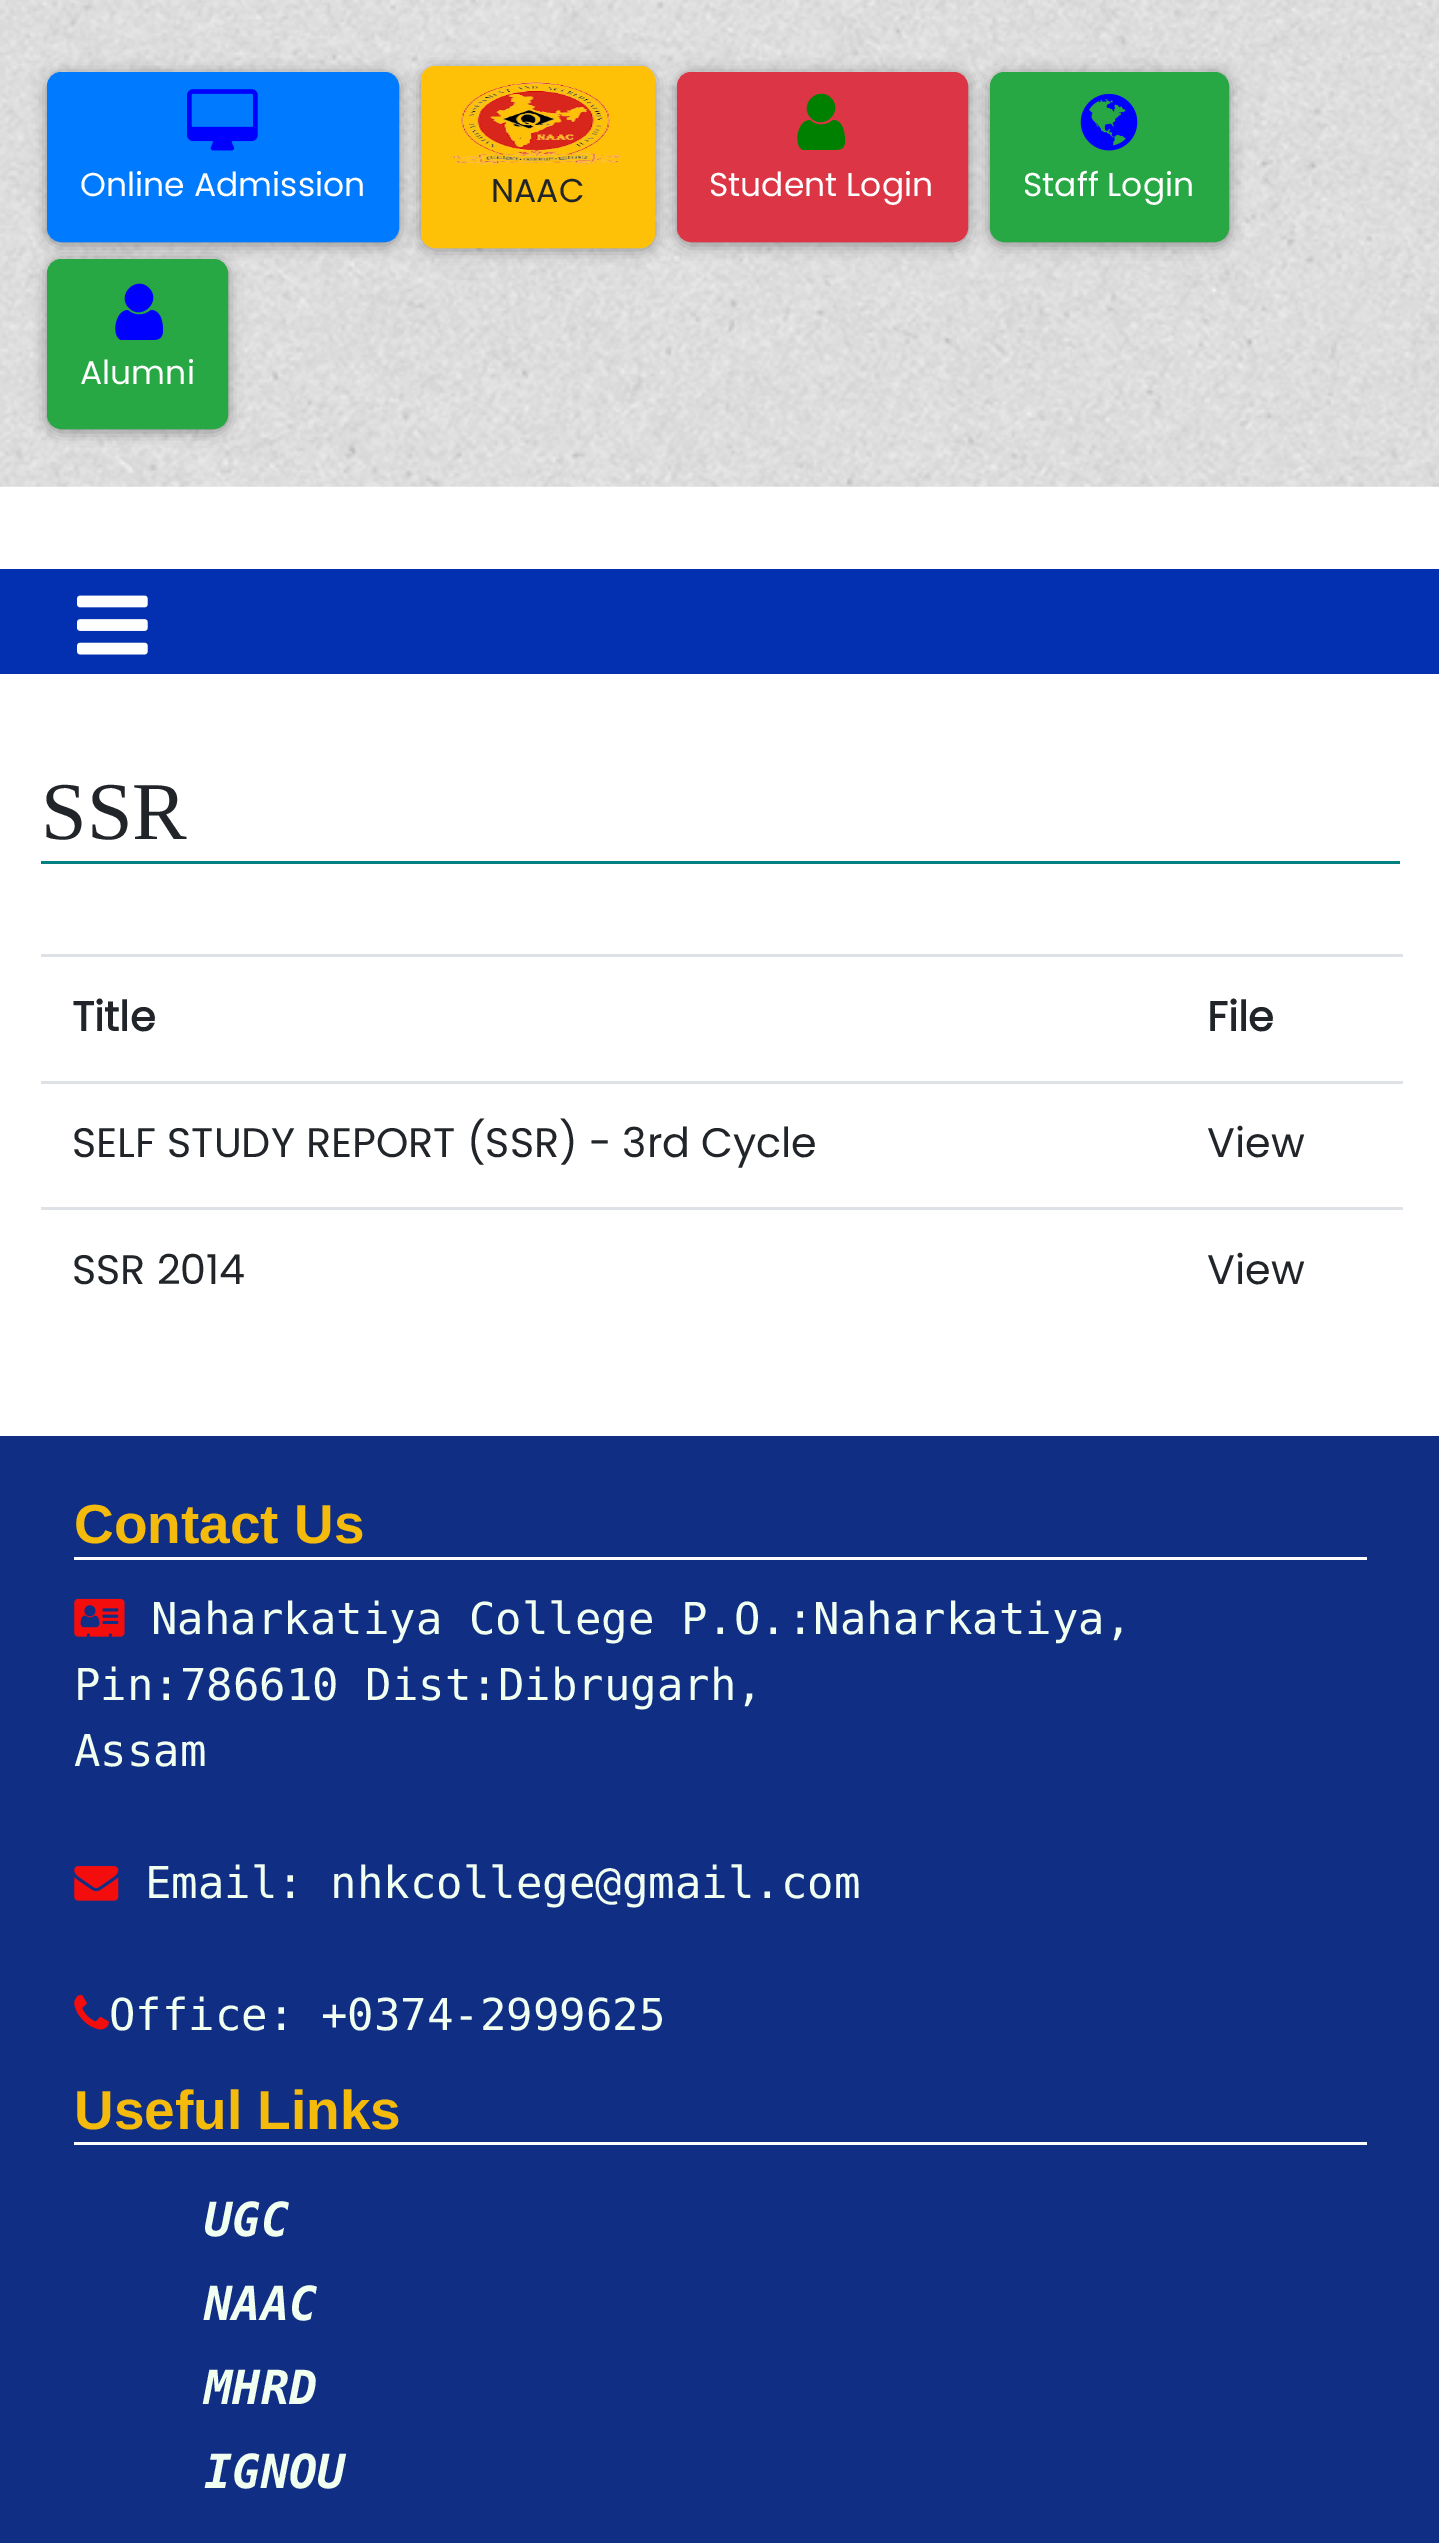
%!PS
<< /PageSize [1439 2543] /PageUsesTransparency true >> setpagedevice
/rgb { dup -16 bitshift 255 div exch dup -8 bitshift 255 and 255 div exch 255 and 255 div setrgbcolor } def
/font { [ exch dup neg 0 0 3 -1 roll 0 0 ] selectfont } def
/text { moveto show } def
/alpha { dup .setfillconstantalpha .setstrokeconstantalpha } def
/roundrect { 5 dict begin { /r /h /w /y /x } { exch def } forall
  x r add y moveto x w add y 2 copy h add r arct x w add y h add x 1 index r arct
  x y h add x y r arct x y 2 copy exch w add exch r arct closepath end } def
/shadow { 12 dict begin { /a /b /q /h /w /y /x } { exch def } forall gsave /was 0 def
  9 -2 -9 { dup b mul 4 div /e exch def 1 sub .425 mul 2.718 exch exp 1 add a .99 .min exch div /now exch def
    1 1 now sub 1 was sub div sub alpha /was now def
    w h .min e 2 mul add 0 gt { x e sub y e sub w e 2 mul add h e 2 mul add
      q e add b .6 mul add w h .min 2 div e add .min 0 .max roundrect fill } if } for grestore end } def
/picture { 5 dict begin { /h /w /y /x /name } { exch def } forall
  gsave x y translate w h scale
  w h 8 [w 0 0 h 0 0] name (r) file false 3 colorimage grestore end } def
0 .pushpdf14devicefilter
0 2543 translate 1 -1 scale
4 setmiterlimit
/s1 { /Poppins-Regular 33 font 16#FFFFFF rgb } def
/s2 { /Poppins-Regular 33 font 16#212529 rgb } def
/s3 { /LiberationSerif-Regular 82 font 16#212529 rgb } def
/s4 { /Poppins-Bold 41.25 font 16#212529 rgb } def
/s5 { /Poppins-Regular 41.25 font 16#212529 rgb } def
/s6 { /LiberationSans-Bold 55 font 16#F4BB0D rgb } def
/s7 { /DejaVuSansMono-Regular 44 font 16#F0FFF0 rgb } def
/s8 { /DejaVuSansMono-BoldItalic 47 font 16#F0FFF0 rgb } def
16#FFFFFF rgb
0 0 1439 2543 rectfill
(pic1.raw) 0 0 1439 487 picture
16#000000 rgb
47 74 352 171 14 7 0.35 shadow
16#007BFF rgb
48.5 73.5 349 167 12.5 roundrect gsave fill grestore
3 setlinewidth
stroke
(pic2.raw) 187 89 71 62 picture
s1
(Online Admission) 80 196 text
16#000000 rgb
421 69 234 181 14 7 0.35 shadow
16#FFC107 rgb
422.5 67.5 231 179 12.5 roundrect gsave fill grestore
stroke
(pic3.raw) 453 82 166 83 picture
s2
(NAAC) 491 202 text
16#000000 rgb
677 74 291 171 14 7 0.35 shadow
16#DC3545 rgb
678.5 73.5 288 167 12.5 roundrect gsave fill grestore
stroke
16#008000 rgb
845 141 moveto 845 150 839 150 832 150 curveto 803 150 lineto 793 146 797 120 810 120 curveto 816 126 826 126 833 120 curveto 843 120 845 133 845 141 curveto closepath 831 98 moveto 844 111 824 131 811 118 curveto 798 105 818 85 831 98 curveto closepath fill
s1
(Student Login) 709 196 text
16#000000 rgb
990 74 239 171 14 7 0.35 shadow
16#28A745 rgb
991.5 73.5 236 167 12.5 roundrect gsave fill grestore
stroke
(pic4.raw) 1080 93 58 58 picture
s1
(Staff Login) 1023 196 text
16#000000 rgb
47 261 181 171 14 7 0.35 shadow
16#28A745 rgb
48.5 260.5 178 167 12.5 roundrect gsave fill grestore
stroke
16#0000FF rgb
163 330 moveto 163 340 157 340 150 340 curveto 121 340 lineto 111 336 115 310 128 310 curveto 134 316 144 316 151 310 curveto 161 310 163 323 163 330 curveto closepath 149 288 moveto 162 301 142 321 129 308 curveto 116 295 136 275 149 288 curveto closepath fill
s1
(Alumni) 80 384 text
16#0230B0 rgb
0 569 1439 105 rectfill
(pic5.raw) 77 595 71 60 picture
16#008080 rgb
41 861 1359 3 rectfill
s3
(SSR) 41 839 text
s4
(Title) 72 1031 text
16#DEE2E6 rgb
41 954 1362 3 rectfill
s4
(File) 1207 1031 text
s5
(SELF STUDY REPORT \(SSR\) - 3rd Cycle) 72 1157 text
16#DEE2E6 rgb
41 1081 1362 3 rectfill
s5
(View) 1207 1157 text
(SSR 2014) 72 1284 text
16#DEE2E6 rgb
41 1207 1362 3 rectfill
s5
(View) 1207 1284 text
16#112E85 rgb
0 1436 1439 1107 rectfill
16#FFFFFF rgb
74 1557 1293 3 rectfill
s6
(Contact Us) 74 1543 text
(pic6.raw) 74 1598 51 39 picture
s7
(Naharkatiya College P.O.:Naharkatiya,) 151 1634 text
(Pin:786610 Dist:Dibrugarh,) 74 1700 text
(Assam) 74 1766 text
(pic7.raw) 74 1866 45 35 picture
(Email: nhkcollege@gmail.com) 145 1898 text
(pic8.raw) 74 1994 35 36 picture
(Office: +0374-2999625) 109 2030 text
16#FFFFFF rgb
74 2142 1293 3 rectfill
s6
(Useful Links) 74 2129 text
s8
(UGC) 204 2236 text
(NAAC) 204 2320 text
(MHRD) 204 2404 text
(IGNOU) 204 2488 text
.poppdf14devicefilter showpage
